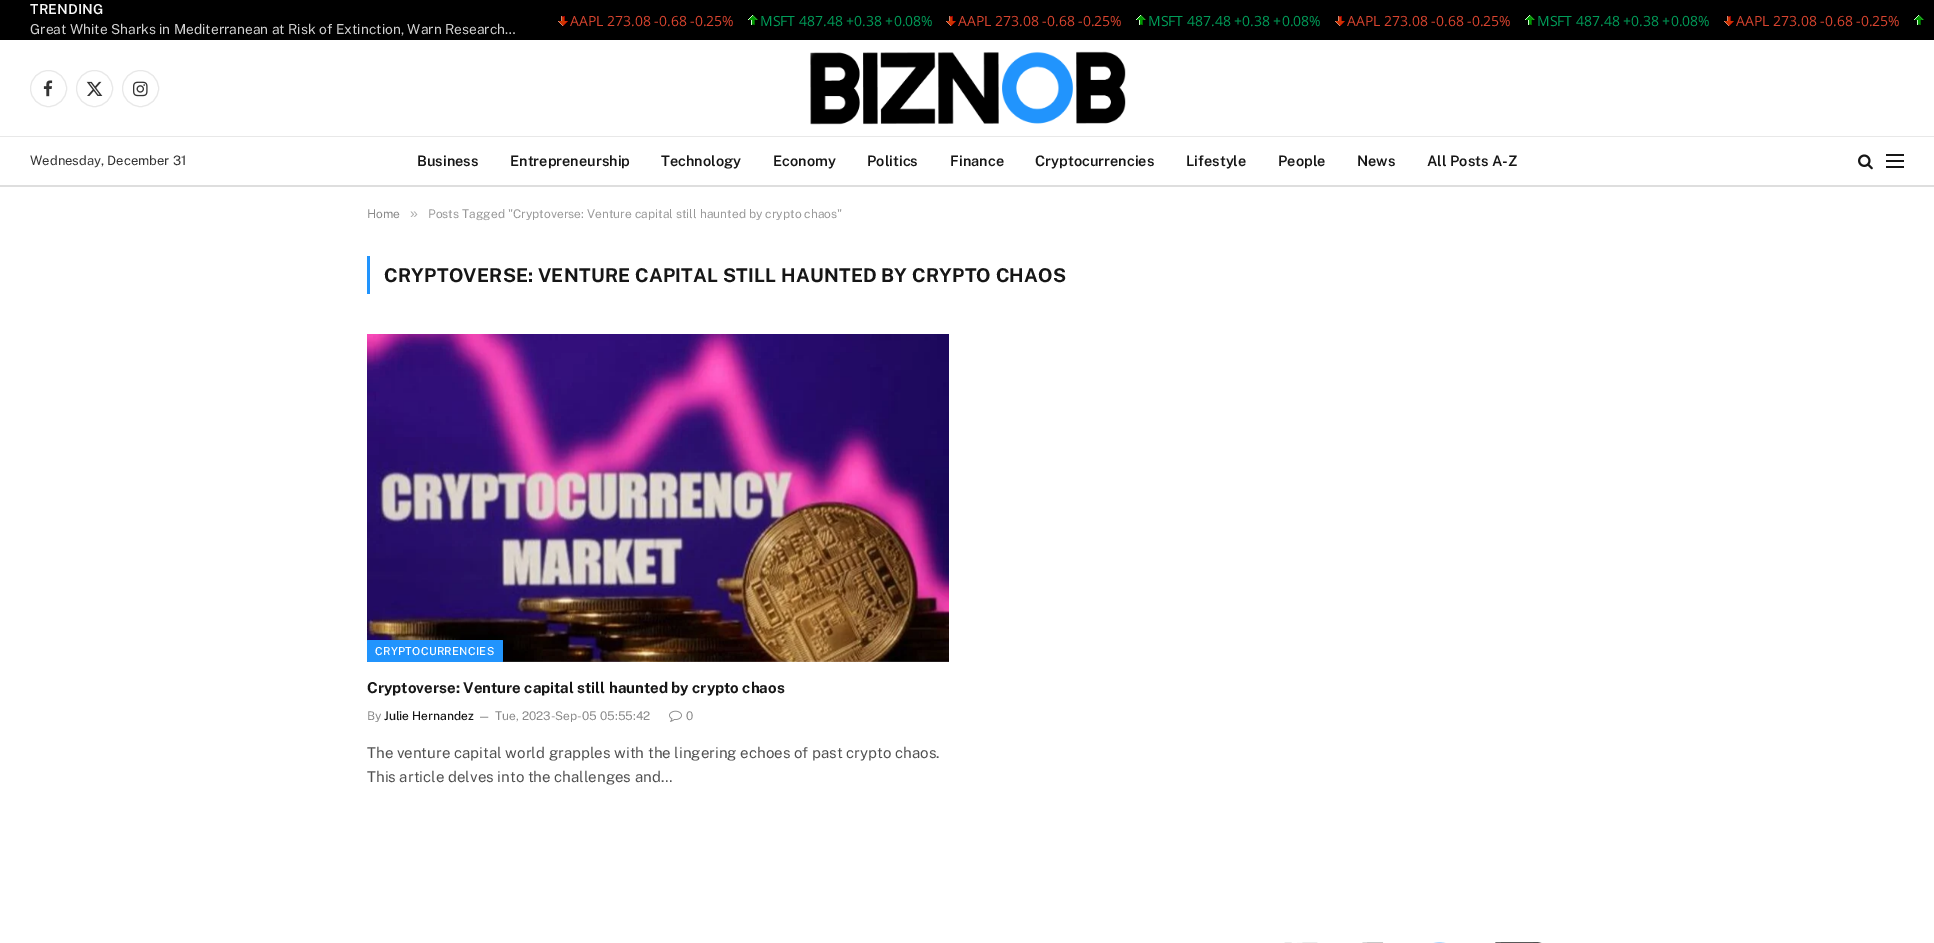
%!PS
<< /PageSize [1934 943] >> setpagedevice
/rgb { dup -16 bitshift 255 div exch dup -8 bitshift 255 and 255 div exch 255 and 255 div setrgbcolor } def
/font { [ exch dup neg 0 0 3 -1 roll 0 0 ] selectfont } def
/text { moveto show } def
/circle { newpath 0 360 arc closepath } def
/roundrect { 5 dict begin { /r /h /w /y /x } { exch def } forall
  x r add y moveto x w add y 2 copy h add r arct x w add y h add x 1 index r arct
  x y h add x y r arct x y 2 copy exch w add exch r arct closepath end } def
/picture { 5 dict begin { /h /w /y /x /name } { exch def } forall
  gsave x y translate w h scale
  w h 8 [w 0 0 h 0 0] name (r) file false 3 colorimage grestore end } def
0 943 translate 1 -1 scale
4 setmiterlimit
/s1 { /PublicSans-Regular 13.8 font 16#D1D1D1 rgb } def
/s2 { /OpenSans-Regular 14 font 16#D8442F rgb } def
/s3 { /OpenSans-Regular 14 font 16#009D59 rgb } def
/s4 { /PublicSans-Regular 13 font 16#333333 rgb } def
/s5 { /PublicSans-SemiBold 14.5 font 16#161616 rgb } def
/s6 { /PublicSans-Regular 12 font 16#8A8A8A rgb } def
/s7 { /LiberationSans-Regular 14 font 16#ADADAD rgb } def
/s8 { /PublicSans-Regular 12 font 16#999999 rgb } def
/s9 { /PublicSans-Bold 15 font 16#161616 rgb } def
/s10 { /PublicSans-Medium 12 font 16#161616 rgb } def
/s11 { /PublicSans-Regular 11 font 16#8A8A8A rgb } def
/s12 { /PublicSans-Regular 15 font 16#505050 rgb } def
16#FFFFFF rgb
0 0 1934 943 rectfill
16#000000 rgb
0 0 1934 40 rectfill
/PublicSans-SemiBold 13.8 font
16#F7F7F7 rgb
30 14 moveto 0.25 0 (TRENDING) ashow
s1
(Great White Sharks in Mediterranean at Risk of Extinction, Warn Research…) 30 34 text
(pic1.raw) 558 16 10 10 picture
s2
(AAPL 273.08 -0.68 -0.25%) 570 26 text
(pic2.raw) 748 15 10 10 picture
s3
(MSFT 487.48 +0.38 +0.08%) 760 26 text
(pic1.raw) 946 16 10 10 picture
s2
(AAPL 273.08 -0.68 -0.25%) 958 26 text
(pic2.raw) 1136 15 10 10 picture
s3
(MSFT 487.48 +0.38 +0.08%) 1148 26 text
(pic1.raw) 1335 16 10 10 picture
s2
(AAPL 273.08 -0.68 -0.25%) 1347 26 text
(pic2.raw) 1525 15 10 10 picture
s3
(MSFT 487.48 +0.38 +0.08%) 1537 26 text
(pic1.raw) 1724 16 10 10 picture
s2
(AAPL 273.08 -0.68 -0.25%) 1736 26 text
(pic2.raw) 1914 15 10 10 picture
16#E8E8E8 rgb
48.5 88.5 18 circle stroke
(pic3.raw) 43 80 10 17 picture
94.5 88.5 18 circle stroke
(pic4.raw) 86 81 17 15 picture
140.5 88.5 18 circle stroke
(pic5.raw) 133 81 15 16 picture
(pic6.raw) 810 51 316 74 picture
0 136 1934 1 rectfill
16#DEDEDE rgb
0 185 1934 2 rectfill
s4
(Wednesday, December 31) 30 165 text
s5
(Business) 417 166 text
(Entrepreneurship) 510 166 text
(Technology) 661 166 text
(Economy) 773 166 text
(Politics) 867 166 text
(Finance) 950 166 text
(Cryptocurrencies) 1035 166 text
(Lifestyle) 1186 166 text
(People) 1278 166 text
(News) 1357 166 text
(All Posts A-Z) 1427 166 text
(pic7.raw) 1858 154 15 16 picture
1886 166 18 2 rectfill
1886 154 18 2 rectfill
1886 160 18 2 rectfill
s6
(Home) 367 218 text
s7
(») 410 218 text
s8
(Posts Tagged "Cryptoverse: Venture capital still haunted by crypto chaos") 428 218 text
16#2194FD rgb
367 256 3 38 rectfill
/PublicSans-Bold 19 font
16#161616 rgb
384 282 moveto 0.2 0 (CRYPTOVERSE: VENTURE CAPITAL STILL HAUNTED BY CRYPTO CHAOS) ashow
(pic8.raw) 367 334 582 328 picture
16#2194FD rgb
367 640 136 22 1 roundrect fill
/PublicSans-Medium 11 font
16#FFFFFF rgb
375 655 moveto 0.3 0 (CRYPTOCURRENCIES) ashow
s9
(Cryptoverse: Venture capital still haunted by crypto chaos) 367 693 text
s6
(By) 367 720 text
s10
(Julie Hernandez) 384 720 text
s11
(—) 478 720 text
s6
(Tue, 2023-Sep-05 05:55:42) 495 720 text
(pic9.raw) 669 710 13 12 picture
(0) 686 720 text
s12
(The venture capital world grapples with the lingering echoes of past crypto chaos.) 367 758 text
(This article delves into the challenges and…) 367 782 text
(pic10.raw) 1284 942 258 1 picture
showpage
